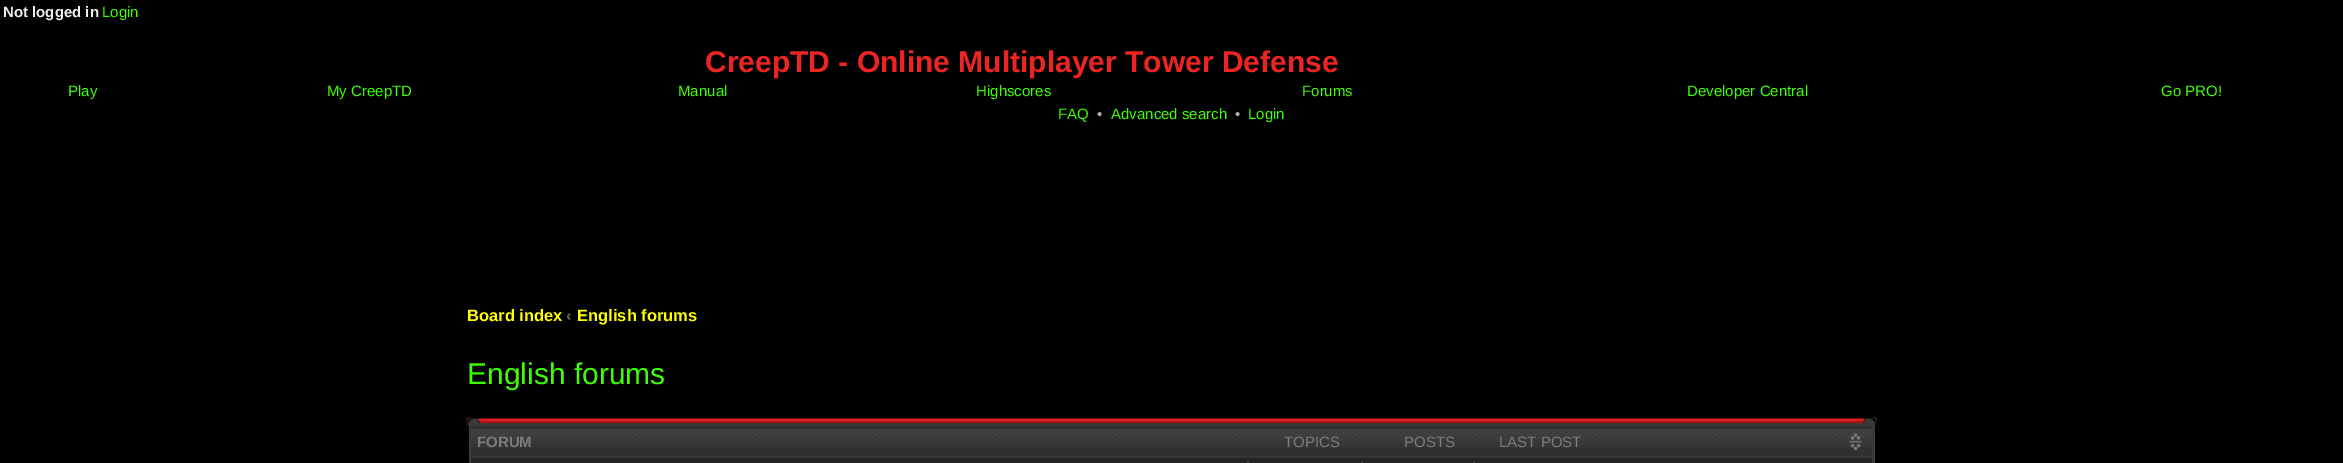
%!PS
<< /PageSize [2343 463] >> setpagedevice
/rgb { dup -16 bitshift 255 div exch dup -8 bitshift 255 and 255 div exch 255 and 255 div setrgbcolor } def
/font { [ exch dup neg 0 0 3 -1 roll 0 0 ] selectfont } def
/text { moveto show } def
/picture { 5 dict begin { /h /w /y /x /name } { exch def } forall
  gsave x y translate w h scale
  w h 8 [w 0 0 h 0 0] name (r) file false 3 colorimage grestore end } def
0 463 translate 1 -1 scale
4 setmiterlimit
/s1 { /LiberationSans-Bold 15 font 16#F0F0F0 rgb } def
/s2 { /LiberationSans-Regular 15 font 16#3CFF00 rgb } def
/s3 { /LiberationSans-Bold 30 font 16#EC2523 rgb } def
/s4 { /LiberationSans-Regular 15 font 16#B0B0B0 rgb } def
/s5 { /LiberationSans-Bold 16.5 font 16#FFFF00 rgb } def
/s6 { /LiberationSans-Bold 16.5 font 16#666666 rgb } def
/s7 { /LiberationSans-Regular 30 font 16#3CFF00 rgb } def
/s8 { /LiberationSans-Bold 15 font 16#7C7C7C rgb } def
/s9 { /LiberationSans-Regular 15 font 16#7C7C7C rgb } def
16#000000 rgb
0 0 2343 463 rectfill
s1
(Not logged in) 3 17 text
s2
(Login) 102 17 text
s3
(CreepTD - Online Multiplayer Tower Defense) 705 72 text
s2
(Play) 68 96 text
(My CreepTD) 327 96 text
(Manual) 678 96 text
(Highscores) 976 96 text
(Forums) 1302 96 text
(Developer Central) 1687 96 text
(Go PRO!) 2161 96 text
(FAQ) 1058 119 text
s4
(•) 1097 119 text
s2
(Advanced search) 1111 119 text
s4
(•) 1235 119 text
s2
(Login) 1248 119 text
s5
(Board index) 467 321 text
s6
(‹) 566 321 text
s5
(English forums) 577 321 text
s7
(English forums) 467 384 text
(pic1.raw) 466 418 1411 8 picture
(pic2.raw) 466 417 15 9 picture
(pic3.raw) 1862 417 15 9 picture
16#3B3B3B rgb
469 426 1406 37 rectfill
16#303030 rgb
471 426 1401 30 rectfill
(pic4.raw) 471 428 1401 20 picture
s8
(FORUM) 477 447 text
s9
(TOPICS) 1284 447 text
(POSTS) 1404 447 text
(LAST POST) 1499 447 text
(pic5.raw) 1849 433 13 18 picture
16#232323 rgb
471 458 1401 5 rectfill
16#363636 rgb
471 456 1401 2 rectfill
16#393939 rgb
1247 461 2 2 rectfill
1361 461 2 2 rectfill
1473 461 2 2 rectfill
showpage
